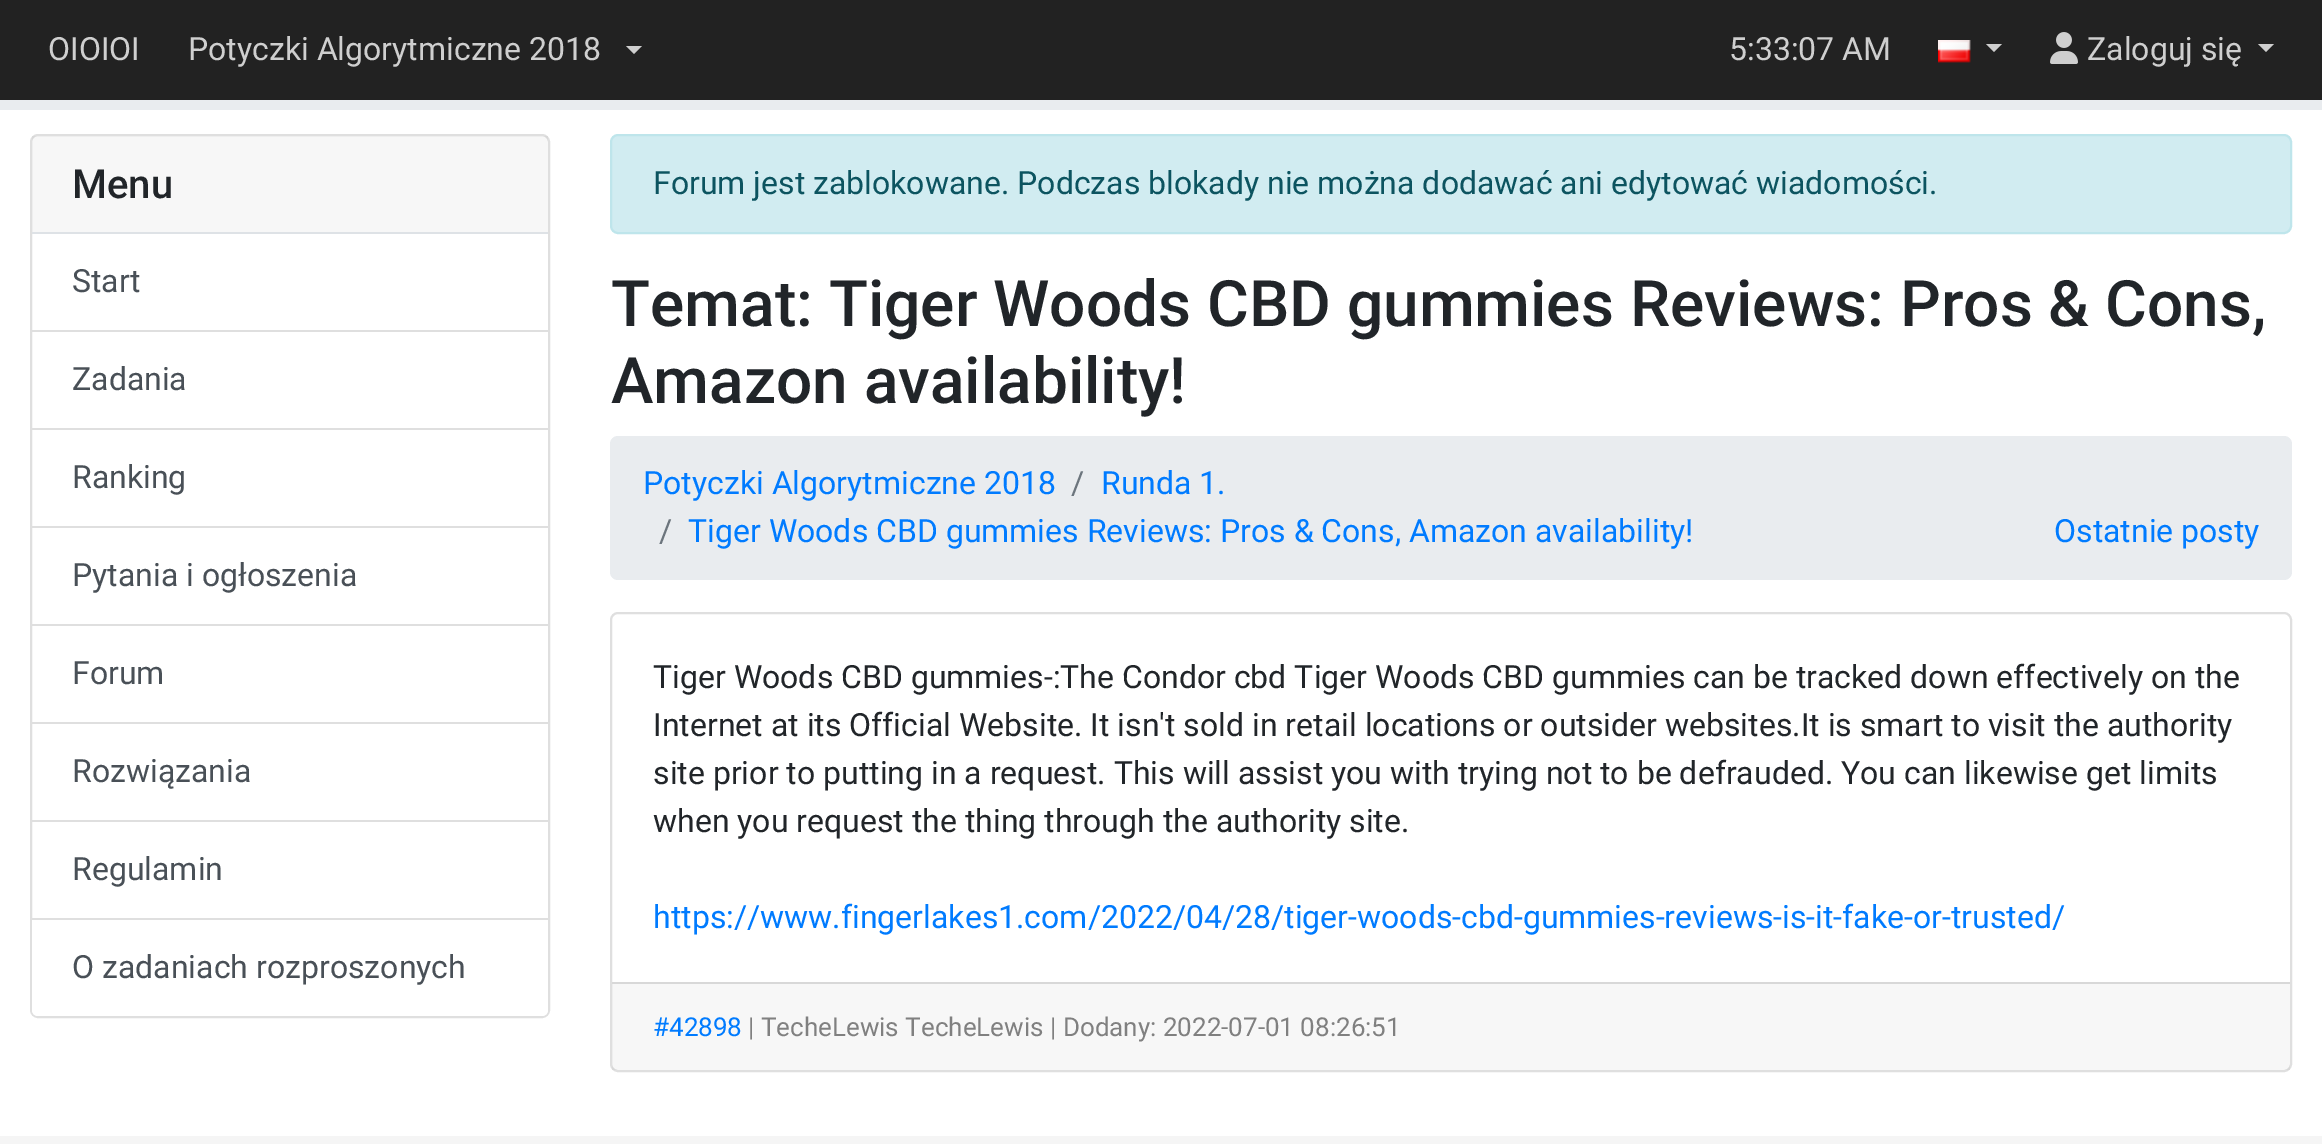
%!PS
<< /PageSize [2322 1144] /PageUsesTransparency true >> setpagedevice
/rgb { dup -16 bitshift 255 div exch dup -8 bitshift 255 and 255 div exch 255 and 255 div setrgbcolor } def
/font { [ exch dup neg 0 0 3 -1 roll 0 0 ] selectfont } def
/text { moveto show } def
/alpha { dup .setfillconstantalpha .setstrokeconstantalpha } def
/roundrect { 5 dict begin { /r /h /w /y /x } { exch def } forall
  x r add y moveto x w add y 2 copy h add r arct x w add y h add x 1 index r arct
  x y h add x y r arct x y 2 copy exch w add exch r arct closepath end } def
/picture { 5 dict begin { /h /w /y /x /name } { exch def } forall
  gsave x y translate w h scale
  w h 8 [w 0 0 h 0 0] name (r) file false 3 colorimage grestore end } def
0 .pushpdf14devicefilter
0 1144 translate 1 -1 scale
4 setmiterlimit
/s1 { /Roboto-Regular 32 font 16#CFCFCF rgb } def
/s2 { /Roboto-Medium 40 font 16#212529 rgb } def
/s3 { /Roboto-Regular 32 font 16#495057 rgb } def
/s4 { /Roboto-Regular 32 font 16#0C5460 rgb } def
/s5 { /Roboto-Medium 64 font 16#212529 rgb } def
/s6 { /Roboto-Regular 32 font 16#007BFF rgb } def
/s7 { /Roboto-Regular 32 font 16#6C757D rgb } def
/s8 { /Roboto-Regular 32 font 16#212529 rgb } def
/s9 { /Roboto-Regular 26 font 16#007BFF rgb } def
/s10 { /Roboto-Regular 26 font 16#808080 rgb } def
16#FFFFFF rgb
0 0 2322 1144 rectfill
16#222222 rgb
0 0 2322 100 rectfill
s1
(OIOIOI) 48 60 text
(Potyczki Algorytmiczne 2018) 188 60 text
626 46 moveto 642 46 lineto 634 54 lineto closepath fill
(5:33:07 AM) 1729 60 text
(pic1.raw) 1938 40 33 23 picture
1986 44 moveto 2002 44 lineto 1994 52 lineto closepath fill
(pic2.raw) 2050 32 28 32 picture
(Zaloguj się) 2087 60 text
2258 44 moveto 2274 44 lineto 2266 52 lineto closepath fill
16#E9ECEF rgb
0 100 2322 10 rectfill
16#DFDFDF rgb
2 setlinewidth
31 135 518 882 7 roundrect stroke
0.03 alpha
16#000000 rgb
32 136 516 96 rectfill
1 alpha
s2
(Menu) 72 198 text
16#DEE2E6 rgb
32 232 516 2 rectfill
16#DFDFDF rgb
32 330 516 2 rectfill
s3
(Start) 72 292 text
16#DFDFDF rgb
32 428 516 2 rectfill
s3
(Zadania) 72 390 text
16#DFDFDF rgb
32 526 516 2 rectfill
s3
(Ranking) 72 488 text
16#DFDFDF rgb
32 624 516 2 rectfill
s3
(Pytania i ogłoszenia) 72 586 text
16#DFDFDF rgb
32 722 516 2 rectfill
s3
(Forum) 72 684 text
16#DFDFDF rgb
32 820 516 2 rectfill
s3
(Rozwiązania) 72 782 text
16#DFDFDF rgb
32 918 516 2 rectfill
s3
(Regulamin) 72 880 text
16#FFFFFF rgb
32 920 moveto 548 920 lineto 548 1010 lineto 548 1013.5 545.5 1016 542 1016 curveto 38 1016 lineto 34.5 1016 32 1013.5 32 1010 curveto closepath fill
s3
(O zadaniach rozproszonych) 72 978 text
16#D1ECF1 rgb
611 135 1680 98 7 roundrect gsave fill grestore
16#BEE5EB rgb
stroke
s4
(Forum jest zablokowane. Podczas blokady nie można dodawać ani edytować wiadomości.) 653 194 text
s5
(Temat: Tiger Woods CBD gummies Reviews: Pros & Cons,) 611 326 text
(Amazon availability!) 611 403 text
16#E9ECEF rgb
610 436 1682 144 8 roundrect fill
s6
(Potyczki Algorytmiczne 2018) 643 494 text
s7
(/) 1071 494 text
s6
(Runda 1.) 1101 494 text
s7
(/) 659 542 text
s6
(Tiger Woods CBD gummies Reviews: Pros & Cons, Amazon availability!) 688 542 text
(Ostatnie posty) 2054 542 text
16#DFDFDF rgb
611 613 1680 458 7 roundrect stroke
s8
(Tiger Woods CBD gummies-:The Condor cbd Tiger Woods CBD gummies can be tracked down effectively on the) 653 688 text
(Internet at its Official Website. It isn't sold in retail locations or outsider websites.It is smart to visit the authority) 653 736 text
(site prior to putting in a request. This will assist you with trying not to be defrauded. You can likewise get limits) 653 784 text
(when you request the thing through the authority site.) 653 832 text
s6
(https://www.fingerlakes1.com/2022/04/28/tiger-woods-cbd-gummies-reviews-is-it-fake-or-trusted/) 653 928 text
0.03 alpha
16#000000 rgb
612 984 1678 86 rectfill
1 alpha
16#D8D8D8 rgb
612 982 1678 2 rectfill
s9
(#42898) 653 1036 text
s10
(| TecheLewis TecheLewis | Dodany: 2022-07-01 08:26:51) 748 1036 text
16#F5F5F5 rgb
0 1136 2322 8 rectfill
.poppdf14devicefilter showpage
